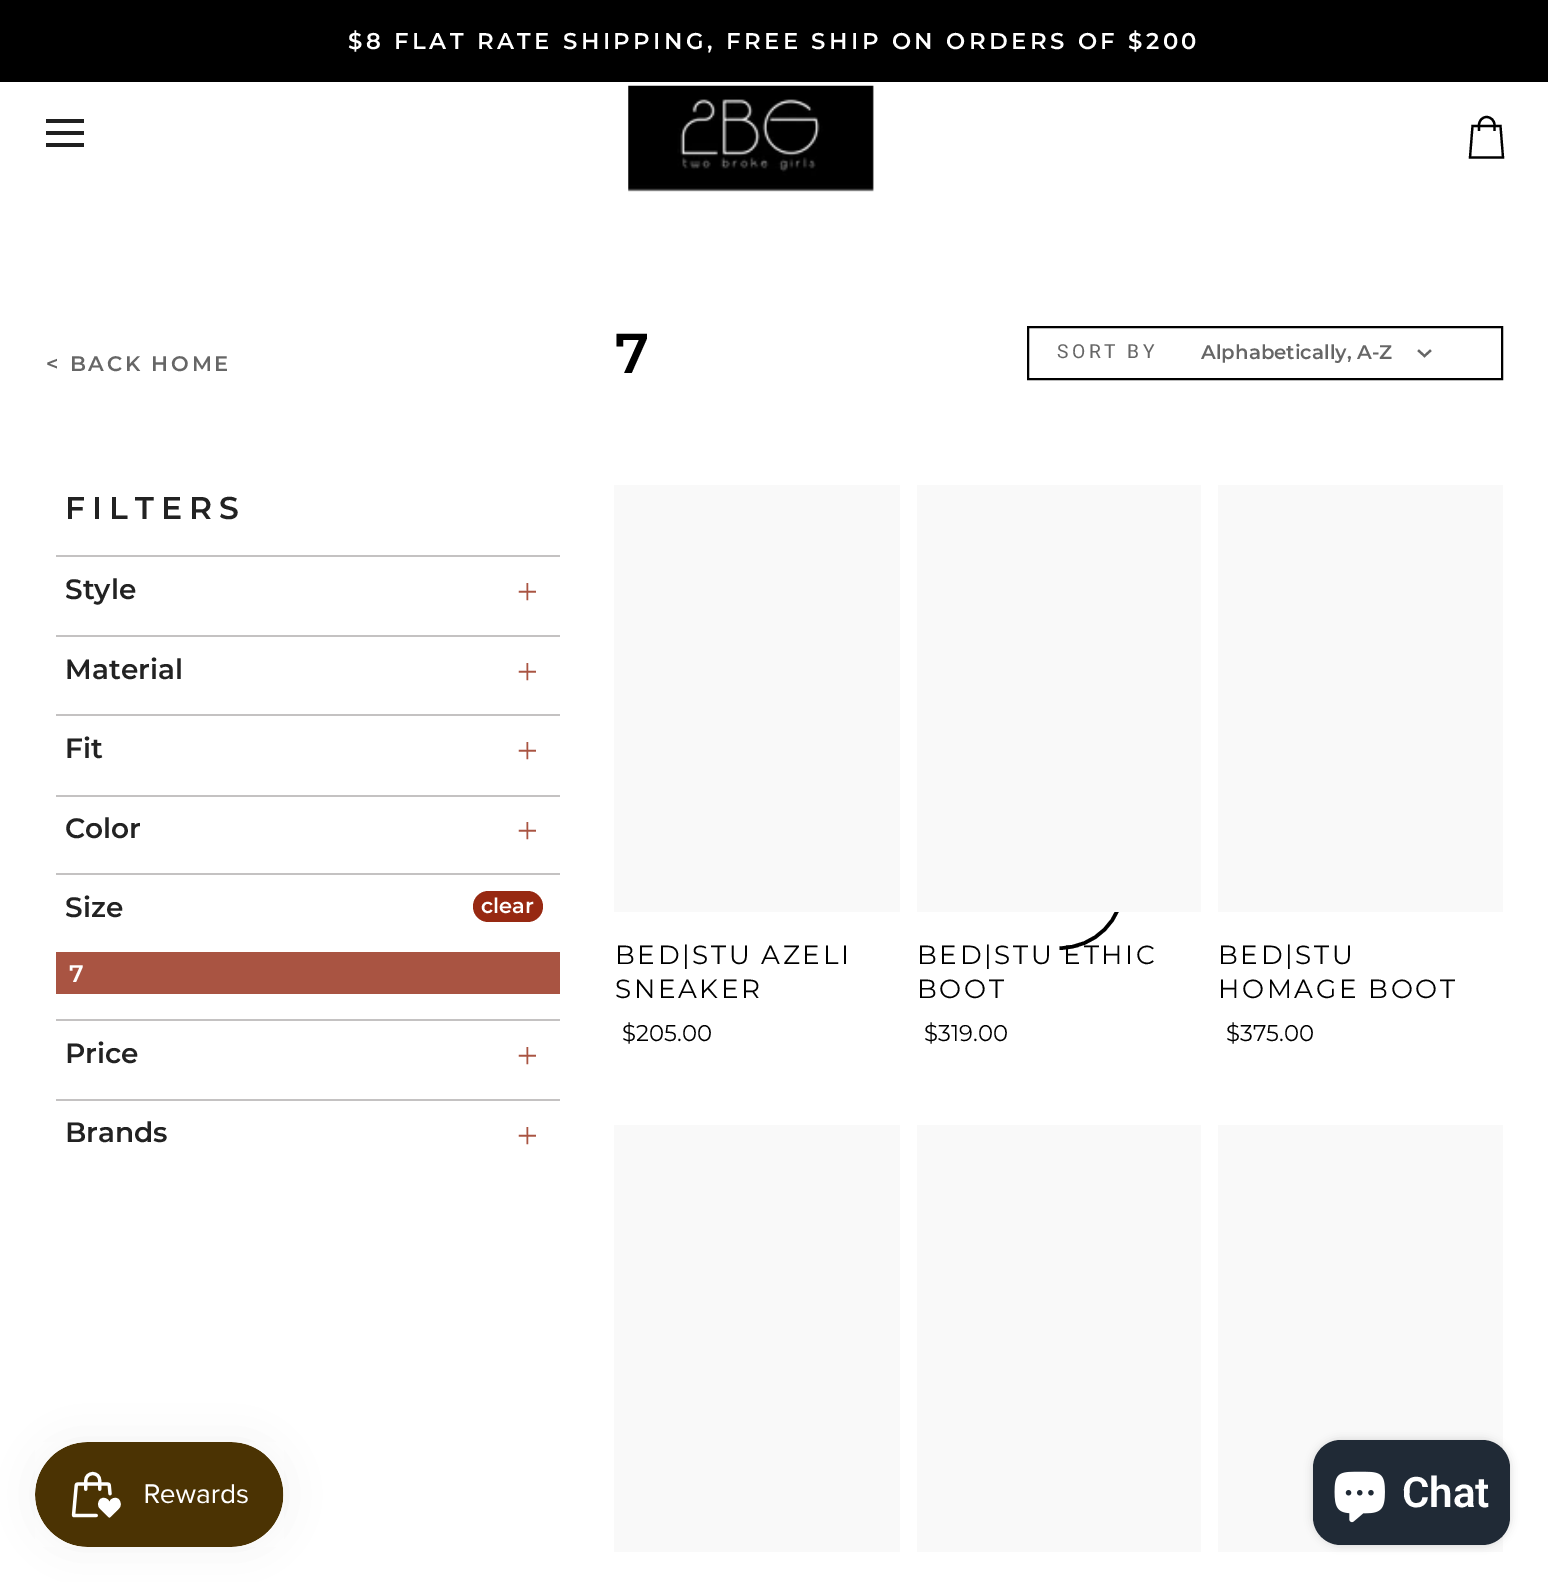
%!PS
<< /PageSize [1548 1582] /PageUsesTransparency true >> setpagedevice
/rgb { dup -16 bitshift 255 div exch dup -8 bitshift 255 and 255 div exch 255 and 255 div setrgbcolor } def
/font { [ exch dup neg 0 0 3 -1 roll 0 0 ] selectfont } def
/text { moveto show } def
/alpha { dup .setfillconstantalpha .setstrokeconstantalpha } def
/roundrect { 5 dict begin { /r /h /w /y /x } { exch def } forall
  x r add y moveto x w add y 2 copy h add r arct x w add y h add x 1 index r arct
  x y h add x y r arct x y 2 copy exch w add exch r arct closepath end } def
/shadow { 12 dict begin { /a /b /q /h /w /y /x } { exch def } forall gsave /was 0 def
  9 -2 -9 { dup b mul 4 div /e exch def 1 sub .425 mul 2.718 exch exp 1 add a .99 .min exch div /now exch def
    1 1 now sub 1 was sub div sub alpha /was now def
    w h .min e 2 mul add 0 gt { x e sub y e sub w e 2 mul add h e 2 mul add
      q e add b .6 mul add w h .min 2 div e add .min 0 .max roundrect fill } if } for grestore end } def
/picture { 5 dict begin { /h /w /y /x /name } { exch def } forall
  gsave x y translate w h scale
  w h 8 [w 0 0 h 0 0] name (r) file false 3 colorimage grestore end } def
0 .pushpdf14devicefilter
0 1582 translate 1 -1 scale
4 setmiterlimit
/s1 { /Montserrat-SemiBold 19.75 font 16#666666 rgb } def
/s2 { /Montserrat-Thin 22.75 font 16#000000 rgb } def
/s3 { /Montserrat-SemiBold 28 font 16#222222 rgb } def
/s4 { /LiberationSerif-Regular 37 font 16#A95442 rgb } def
/s5 { /Montserrat-SemiBold 21 font 16#FFFFFF rgb } def
/s6 { /Montserrat-SemiBold 24 font 16#FFFFFF rgb } def
/s7 { /Roboto-SemiBold 42 font 16#FFFFFF rgb } def
16#FFFFFF rgb
0 0 1548 1582 rectfill
16#000000 rgb
0 0 1548 82 rectfill
/Montserrat-SemiBold 22.75 font
16#FFFFFF rgb
348 49 moveto 3.5 0 ($8 FLAT RATE SHIPPING, FREE SHIP ON ORDERS OF $200) ashow
16#202020 rgb
46 119 38 4 rectfill
46 131 38 4 rectfill
46 143 38 4 rectfill
(pic1.raw) 628 85 246 107 picture
16#000000 rgb
2.2 setlinewidth
1503 157.5 moveto 1470 157.5 lineto 1472.5 126 lineto 1500.5 126 lineto closepath 1494.5 131 moveto 1494.5 125 lineto 1494.5 120.5 1491 117 1486.5 117 curveto 1482.5 117 1479 120.5 1479 125 curveto 1479 131 lineto stroke
/Montserrat-SemiBold 21 font
16#666666 rgb
46 371 moveto 2.75 0 (< BACK HOME) ashow
/Montserrat-SemiBold 56 font
16#000000 rgb
615 373 moveto 3 0 (7) ashow
2 setlinewidth
1028 327 474 52 rectstroke
/Roboto-Regular 19.25 font
16#666666 rgb
1057 358 moveto 3.5 0 (SORT BY) ashow
s1
(Alphabetically, A-Z) 1201 359 text
2.2 setlinewidth
2 setlinecap
1424.5 356 moveto 1430 351 lineto 1424.5 356 moveto 1419 351 lineto stroke
16#000000 rgb
3.5 setlinewidth
0 setlinecap
1123 884.5 moveto 1123 920 1095 948 1059.5 948 curveto stroke
16#F9F9F9 rgb
614 485 286 427 rectfill
/Montserrat-Thin 26.25 font
16#000000 rgb
615 964 moveto 2.6 0 (BED|STU AZELI) ashow
615 998 moveto 2.6 0 (SNEAKER) ashow
s2
($205.00) 622 1041 text
16#F9F9F9 rgb
917 485 284 427 rectfill
/Montserrat-Thin 26.25 font
16#000000 rgb
917 964 moveto 2.6 0 (BED|STU ETHIC) ashow
917 998 moveto 2.6 0 (BOOT) ashow
s2
($319.00) 924 1041 text
16#F9F9F9 rgb
1218 485 285 427 rectfill
/Montserrat-Thin 26.25 font
16#000000 rgb
1218 964 moveto 2.6 0 (BED|STU) ashow
1218 998 moveto 2.6 0 (HOMAGE BOOT) ashow
s2
($375.00) 1226 1041 text
16#F9F9F9 rgb
614 1125 286 427 rectfill
917 1125 284 427 rectfill
1218 1125 285 427 rectfill
/Montserrat-SemiBold 31.5 font
16#222222 rgb
65 519 moveto 7 0 (FILTERS) ashow
16#C4C2C2 rgb
56 555 504 2 rectfill
s3
(Style) 65 599 text
s4
(+) 517 604 text
16#C4C2C2 rgb
56 635 504 2 rectfill
s3
(Material) 65 679 text
s4
(+) 517 684 text
16#C4C2C2 rgb
56 714 504 2 rectfill
s3
(Fit) 65 758 text
s4
(+) 517 763 text
16#C4C2C2 rgb
56 795 504 2 rectfill
s3
(Color) 65 838 text
s4
(+) 517 843 text
16#C4C2C2 rgb
56 873 504 2 rectfill
s3
(Size) 65 917 text
16#972912 rgb
473 891 70 31 15.5 roundrect fill
s5
(clear) 481 913 text
16#A95442 rgb
56 952 504 42 rectfill
s6
(7) 69 982 text
16#C4C2C2 rgb
56 1019 504 2 rectfill
s3
(Price) 65 1063 text
s4
(+) 517 1068 text
16#C4C2C2 rgb
56 1099 504 2 rectfill
s3
(Brands) 65 1142 text
s4
(+) 517 1148 text
16#000000 rgb
35 1442 249 105 52.5 22 0.05 shadow
(pic2.raw) 35 1442 249 105 picture
1313 1440 197 105 28 4.5 0.15 shadow
16#202A36 rgb
1313 1440 197 105 28 roundrect fill
(pic3.raw) 1334 1471 51 52 picture
s7
(Chat) 1402 1507 text
.poppdf14devicefilter showpage
